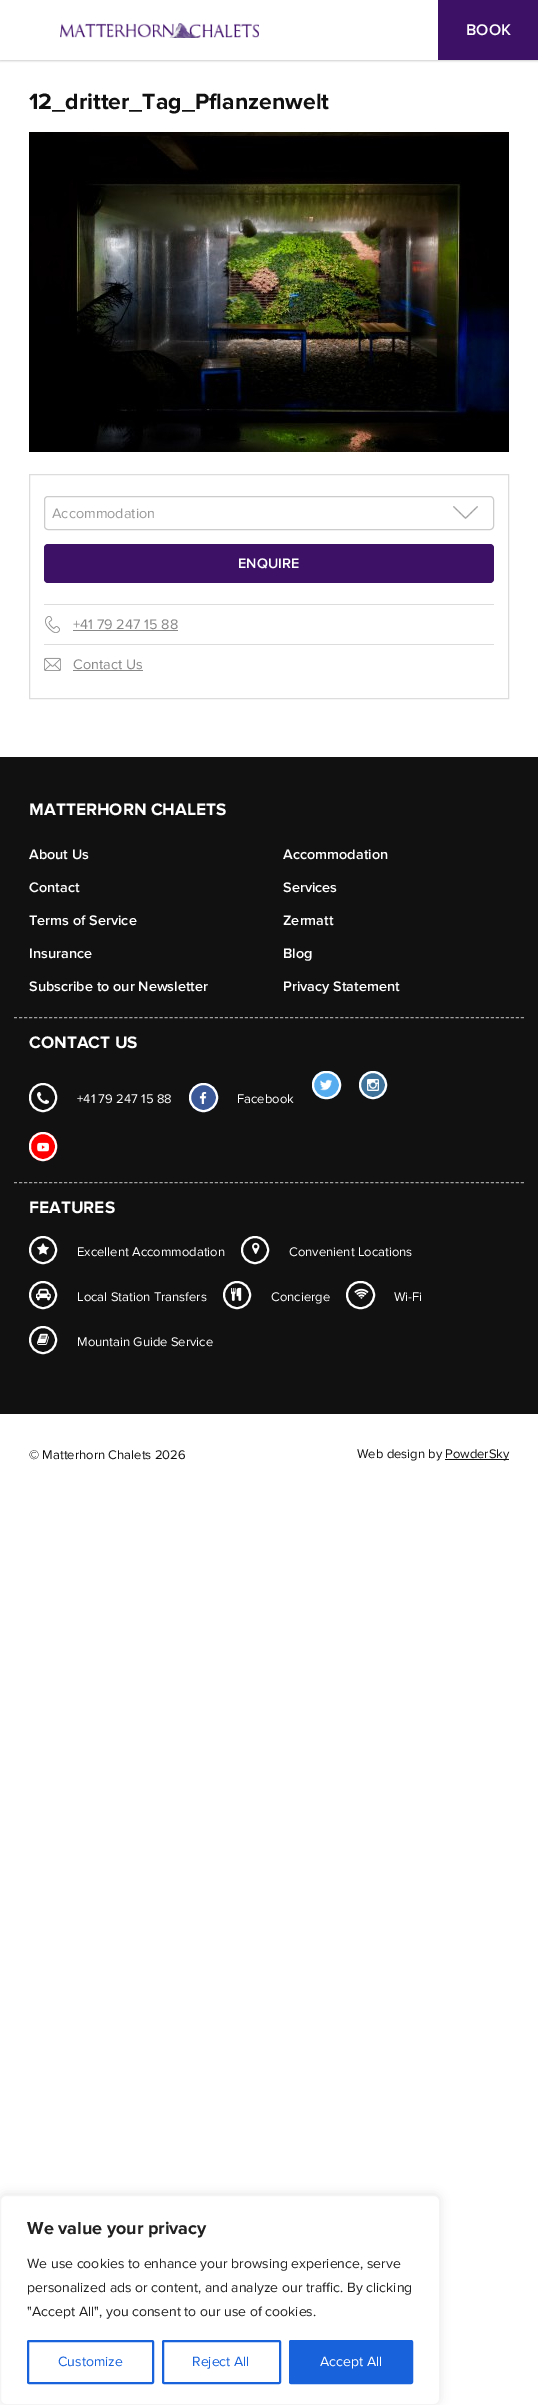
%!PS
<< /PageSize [538 2405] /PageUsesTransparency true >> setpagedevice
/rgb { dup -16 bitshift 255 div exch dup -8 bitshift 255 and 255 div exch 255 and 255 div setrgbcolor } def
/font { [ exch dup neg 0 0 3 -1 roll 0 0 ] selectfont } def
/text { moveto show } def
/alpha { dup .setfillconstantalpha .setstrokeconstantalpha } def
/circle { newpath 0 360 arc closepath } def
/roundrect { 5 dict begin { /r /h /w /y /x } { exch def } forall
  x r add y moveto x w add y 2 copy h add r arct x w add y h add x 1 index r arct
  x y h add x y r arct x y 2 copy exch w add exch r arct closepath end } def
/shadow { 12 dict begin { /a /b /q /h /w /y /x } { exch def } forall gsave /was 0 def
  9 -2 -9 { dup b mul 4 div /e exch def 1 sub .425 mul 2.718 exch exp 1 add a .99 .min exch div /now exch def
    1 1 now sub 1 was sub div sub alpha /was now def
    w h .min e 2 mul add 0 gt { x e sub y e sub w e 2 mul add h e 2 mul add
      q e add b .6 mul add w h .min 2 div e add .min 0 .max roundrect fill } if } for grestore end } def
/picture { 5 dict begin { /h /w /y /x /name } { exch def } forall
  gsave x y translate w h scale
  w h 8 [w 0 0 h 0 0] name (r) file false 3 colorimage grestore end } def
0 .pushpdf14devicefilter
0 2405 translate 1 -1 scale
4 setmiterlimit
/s1 { /ProximaNova-SemiBold 16 font 16#FFFFFF rgb } def
/s2 { /ProximaNova-Bold 23 font 16#111111 rgb } def
/s3 { /ProximaNova-Regular 14.4 font 16#999999 rgb } def
/s4 { /ProximaNova-SemiBold 14.4 font 16#FFFFFF rgb } def
/s5 { /ProximaNova-Regular 14.4 font 16#888888 rgb } def
/s6 { /ProximaNova-Bold 17.25 font 16#FFFFFF rgb } def
/s7 { /ProximaNova-Regular 13 font 16#FFFFFF rgb } def
/s8 { /ProximaNova-Regular 13 font 16#111111 rgb } def
/s9 { /ProximaNova-Bold 18 font 16#212121 rgb } def
/s10 { /ProximaNova-Regular 14 font 16#212121 rgb } def
/s11 { /ProximaNova-Regular 14 font 16#1863DC rgb } def
/s12 { /ProximaNova-Regular 14 font 16#FFFFFF rgb } def
16#FFFFFF rgb
0 0 538 2405 rectfill
gsave
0 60 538 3 rectclip
16#CCCCCC rgb
0 1 538 60 0 1 1 shadow
grestore
(pic1.raw) 60 23 199 15 picture
16#3D1166 rgb
438 0 100 60 rectfill
s1
(BOOK) 466 35 text
s2
(12_dritter_Tag_Pflanzenwelt) 29 109 text
(pic2.raw) 29 132 480 320 picture
16#DDDDDD rgb
29.5 474.5 479 224 rectstroke
(pic3.raw) 453 506 25 13 picture
16#CCCCCC rgb
44.5 496.5 449 33 3.5 roundrect stroke
s3
(Accommodation) 52 518 text
16#3D1166 rgb
44 544 450 39 4 roundrect fill
s4
(ENQUIRE) 238 568 text
(pic4.raw) 45 616 15 17 picture
16#DDDDDD rgb
44 604 450 1 rectfill
s5
(+41 79 247 15 88) 73 629 text
73 630 105 1 rectfill
(pic5.raw) 44 657 17 14 picture
16#DDDDDD rgb
44 644 450 1 rectfill
s5
(Contact Us) 73 669 text
73 670 70 1 rectfill
16#111111 rgb
0 757 538 657 rectfill
s6
(MATTERHORN CHALETS) 29 815 text
s4
(About Us) 29 859 text
(Contact) 29 892 text
(Terms of Service) 29 925 text
(Insurance) 29 958 text
(Subscribe to our Newsletter) 29 991 text
(Accommodation) 283 859 text
(Services) 283 892 text
(Zermatt) 283 925 text
(Blog) 283 958 text
(Privacy Statement) 283 991 text
16#A0A0A0 rgb
[3 2.02] 0 setdash
14 1017.5 moveto 524 1017.5 lineto stroke
s6
(CONTACT US) 29 1048 text
(pic6.raw) 37 1092 12 12 picture
2 setlinewidth
[] 0 setdash
30 1084 26 27 13 roundrect stroke
s7
(+41 79 247 15 88) 77 1103 text
16#3B5998 rgb
203.5 1097.5 14.5 circle fill
(pic7.raw) 199 1092 8 12 picture
16#FFFFFF rgb
203.5 1097.5 13.5 circle stroke
(Facebook) 237 1103 text
16#55ACEE rgb
312 1071 29 28 14 roundrect fill
(pic8.raw) 320 1079 12 12 picture
16#FFFFFF rgb
313 1072 27 26 13 roundrect stroke
16#3F729B rgb
373 1085 14 circle fill
(pic9.raw) 367 1079 12 12 picture
16#FFFFFF rgb
373 1085 13 circle stroke
16#FF0000 rgb
29 1132 28 29 14 roundrect fill
(pic10.raw) 37 1142 12 10 picture
16#FFFFFF rgb
30 1133 26 27 13 roundrect stroke
16#A0A0A0 rgb
1 setlinewidth
[3 2.02] 0 setdash
14 1182.5 moveto 524 1182.5 lineto stroke
s6
(FEATURES) 29 1213 text
2 setlinewidth
[] 0 setdash
43 1250 13 circle stroke
(pic11.raw) 37 1243 12 12 picture
s7
(Excellent Accommodation) 77 1256 text
255 1250 13 circle stroke
(pic12.raw) 252 1242 8 12 picture
(Convenient Locations) 289 1256 text
43 1295 13 circle stroke
(pic13.raw) 36 1288 15 13 picture
(Local Station Transfers) 77 1301 text
237 1295 13 circle stroke
(pic14.raw) 231 1287 11 14 picture
(Concierge) 271 1301 text
347 1282 27 26 13 roundrect stroke
(pic15.raw) 354 1288 15 11 picture
(Wi-Fi) 394 1301 text
43 1340 13 circle stroke
(pic16.raw) 37 1333 12 12 picture
(Mountain Guide Service) 77 1346 text
s8
(© Matterhorn Chalets 2026) 29 1459 text
(Web design by) 357 1458 text
445 1459 64 1 rectfill
(PowderSky) 445 1458 text
16#ACABAB rgb
0 2194 440 210 6 5 0.3 shadow
16#FFFFFF rgb
0.5 2195.5 439 209 5.5 roundrect gsave fill grestore
16#F4F4F4 rgb
1 setlinewidth
stroke
s9
(We value your privacy) 27 2234 text
s10
(We use cookies to enhance your browsing experience, serve) 27 2268 text
(personalized ads or content, and analyze our traffic. By clicking) 27 2292 text
("Accept All", you consent to our use of cookies.) 27 2316 text
16#1863DC rgb
2 setlinewidth
28 2341 125 42 1 roundrect stroke
(Customize) 58 2366 text
163 2341 117 42 1 roundrect stroke
(Reject All) 192 2366 text
290 2341 122 42 1 roundrect gsave fill grestore
stroke
s12
(Accept All) 320 2366 text
.poppdf14devicefilter showpage
